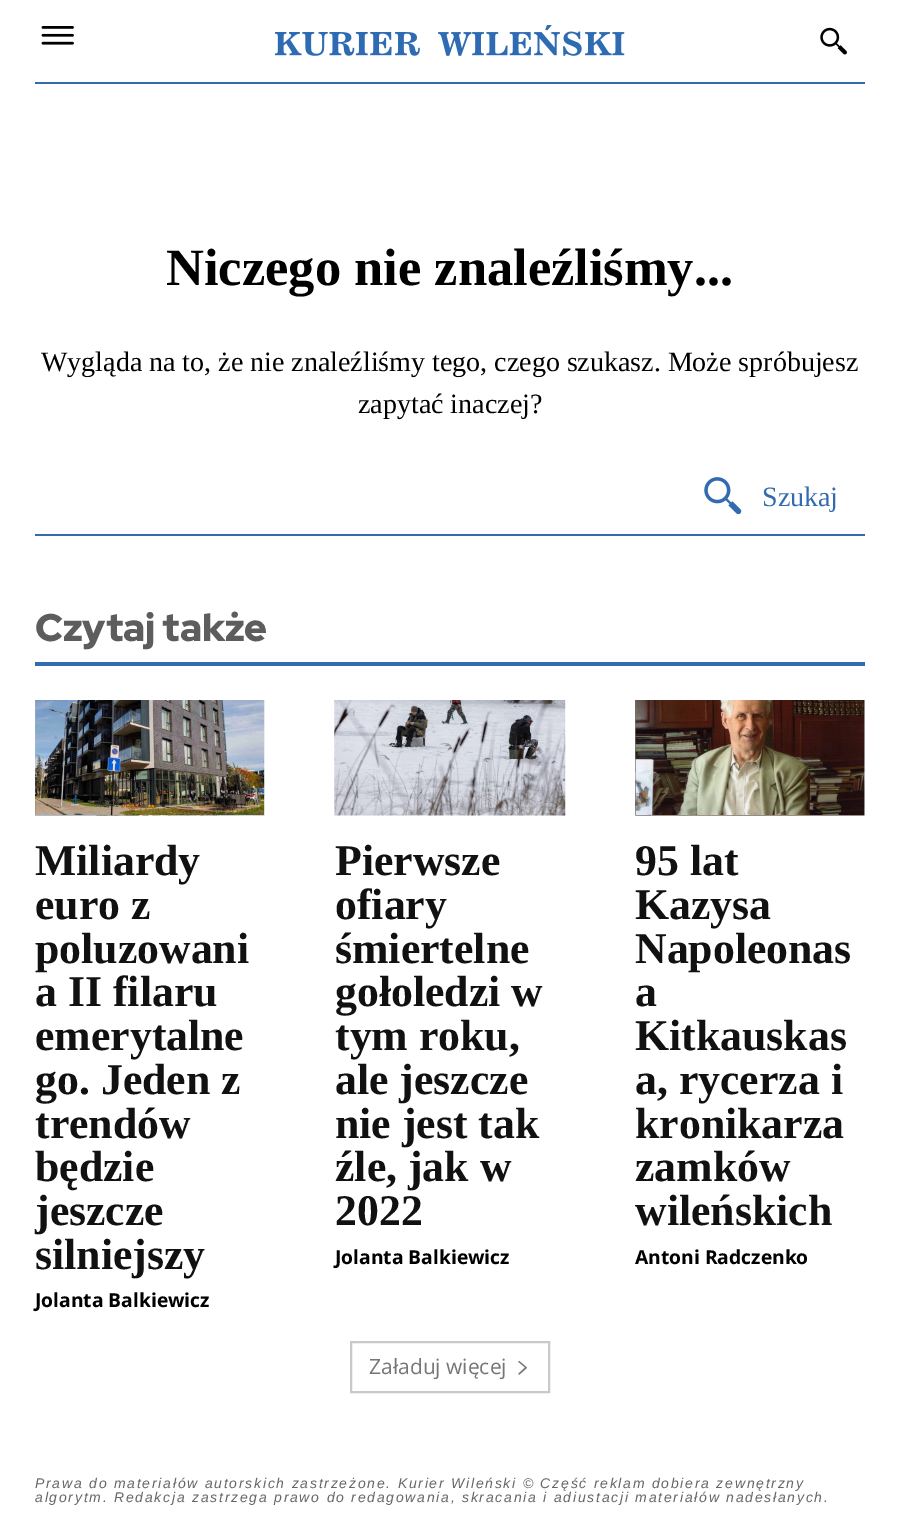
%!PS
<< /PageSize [899 1519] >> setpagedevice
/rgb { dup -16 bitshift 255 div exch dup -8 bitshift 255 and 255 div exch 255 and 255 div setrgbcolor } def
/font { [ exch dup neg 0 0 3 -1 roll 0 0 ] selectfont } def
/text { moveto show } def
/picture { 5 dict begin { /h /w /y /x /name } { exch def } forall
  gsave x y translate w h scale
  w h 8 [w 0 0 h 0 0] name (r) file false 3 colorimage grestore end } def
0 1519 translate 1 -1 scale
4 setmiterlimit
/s1 { /LiberationSerif-Bold 52.5 font 16#000000 rgb } def
/s2 { /LiberationSerif-Regular 28 font 16#000000 rgb } def
/s3 { /LiberationSerif-Regular 28 font 16#336BB1 rgb } def
/s4 { /RedHatDisplay-Black 38.5 font 16#5D5D5D rgb } def
/s5 { /LiberationSerif-Bold 43.75 font 16#111111 rgb } def
/s6 { /OpenSans-Bold 19.25 font 16#000000 rgb } def
/s7 { /OpenSans-Regular 21 font 16#767676 rgb } def
16#FFFFFF rgb
0 0 899 1519 rectfill
(pic1.raw) 41 26 33 19 picture
(pic2.raw) 275 25 350 31 picture
(pic3.raw) 820 27 27 28 picture
16#336BB1 rgb
35 82 830 2 rectfill
s1
(Niczego nie znaleźliśmy...) 166 285 text
s2
(Wygląda na to, że nie znaleźliśmy tego, czego szukasz. Może spróbujesz) 41 371 text
(zapytać inaczej?) 358 413 text
(pic4.raw) 704 477 38 38 picture
s3
(Szukaj) 762 506 text
35 534 830 2 rectfill
35 662 830 4 rectfill
s4
(Czytaj także) 35 641 text
(pic5.raw) 35 700 230 116 picture
s5
(Miliardy) 35 875 text
(euro z) 35 919 text
(poluzowani) 35 963 text
(a II filaru) 35 1006 text
(emerytalne) 35 1050 text
(go. Jeden z) 35 1094 text
(trendów) 35 1138 text
(będzie) 35 1181 text
(jeszcze) 35 1225 text
(silniejszy) 35 1269 text
s6
(Jolanta Balkiewicz) 35 1307 text
(pic6.raw) 334 700 232 116 picture
s5
(Pierwsze) 335 875 text
(ofiary) 335 919 text
(śmiertelne) 335 963 text
(gołoledzi w) 335 1006 text
(tym roku,) 335 1050 text
(ale jeszcze) 335 1094 text
(nie jest tak) 335 1138 text
(źle, jak w) 335 1181 text
(2022) 335 1225 text
s6
(Jolanta Balkiewicz) 335 1264 text
(pic7.raw) 635 700 230 116 picture
s5
(95 lat) 635 875 text
(Kazysa) 635 919 text
(Napoleonas) 635 963 text
(a) 635 1006 text
(Kitkauskas) 635 1050 text
(a, rycerza i) 635 1094 text
(kronikarza) 635 1138 text
(zamków) 635 1181 text
(wileńskich) 635 1225 text
s6
(Antoni Radczenko) 635 1264 text
16#C9C9C9 rgb
2 setlinewidth
351 1342 198 50 rectstroke
s7
(Załaduj więcej) 369 1374 text
(pic8.raw) 518 1361 9 14 picture
/LiberationSans-Italic 14 font
16#666666 rgb
35 1488 moveto 1.75 0 (Prawa do materiałów autorskich zastrzeżone. Kurier Wileński © Część reklam dobiera zewnętrzny) ashow
35 1502 moveto 1.75 0 (algorytm. Redakcja zastrzega prawo do redagowania, skracania i adiustacji materiałów nadesłanych.) ashow
showpage
